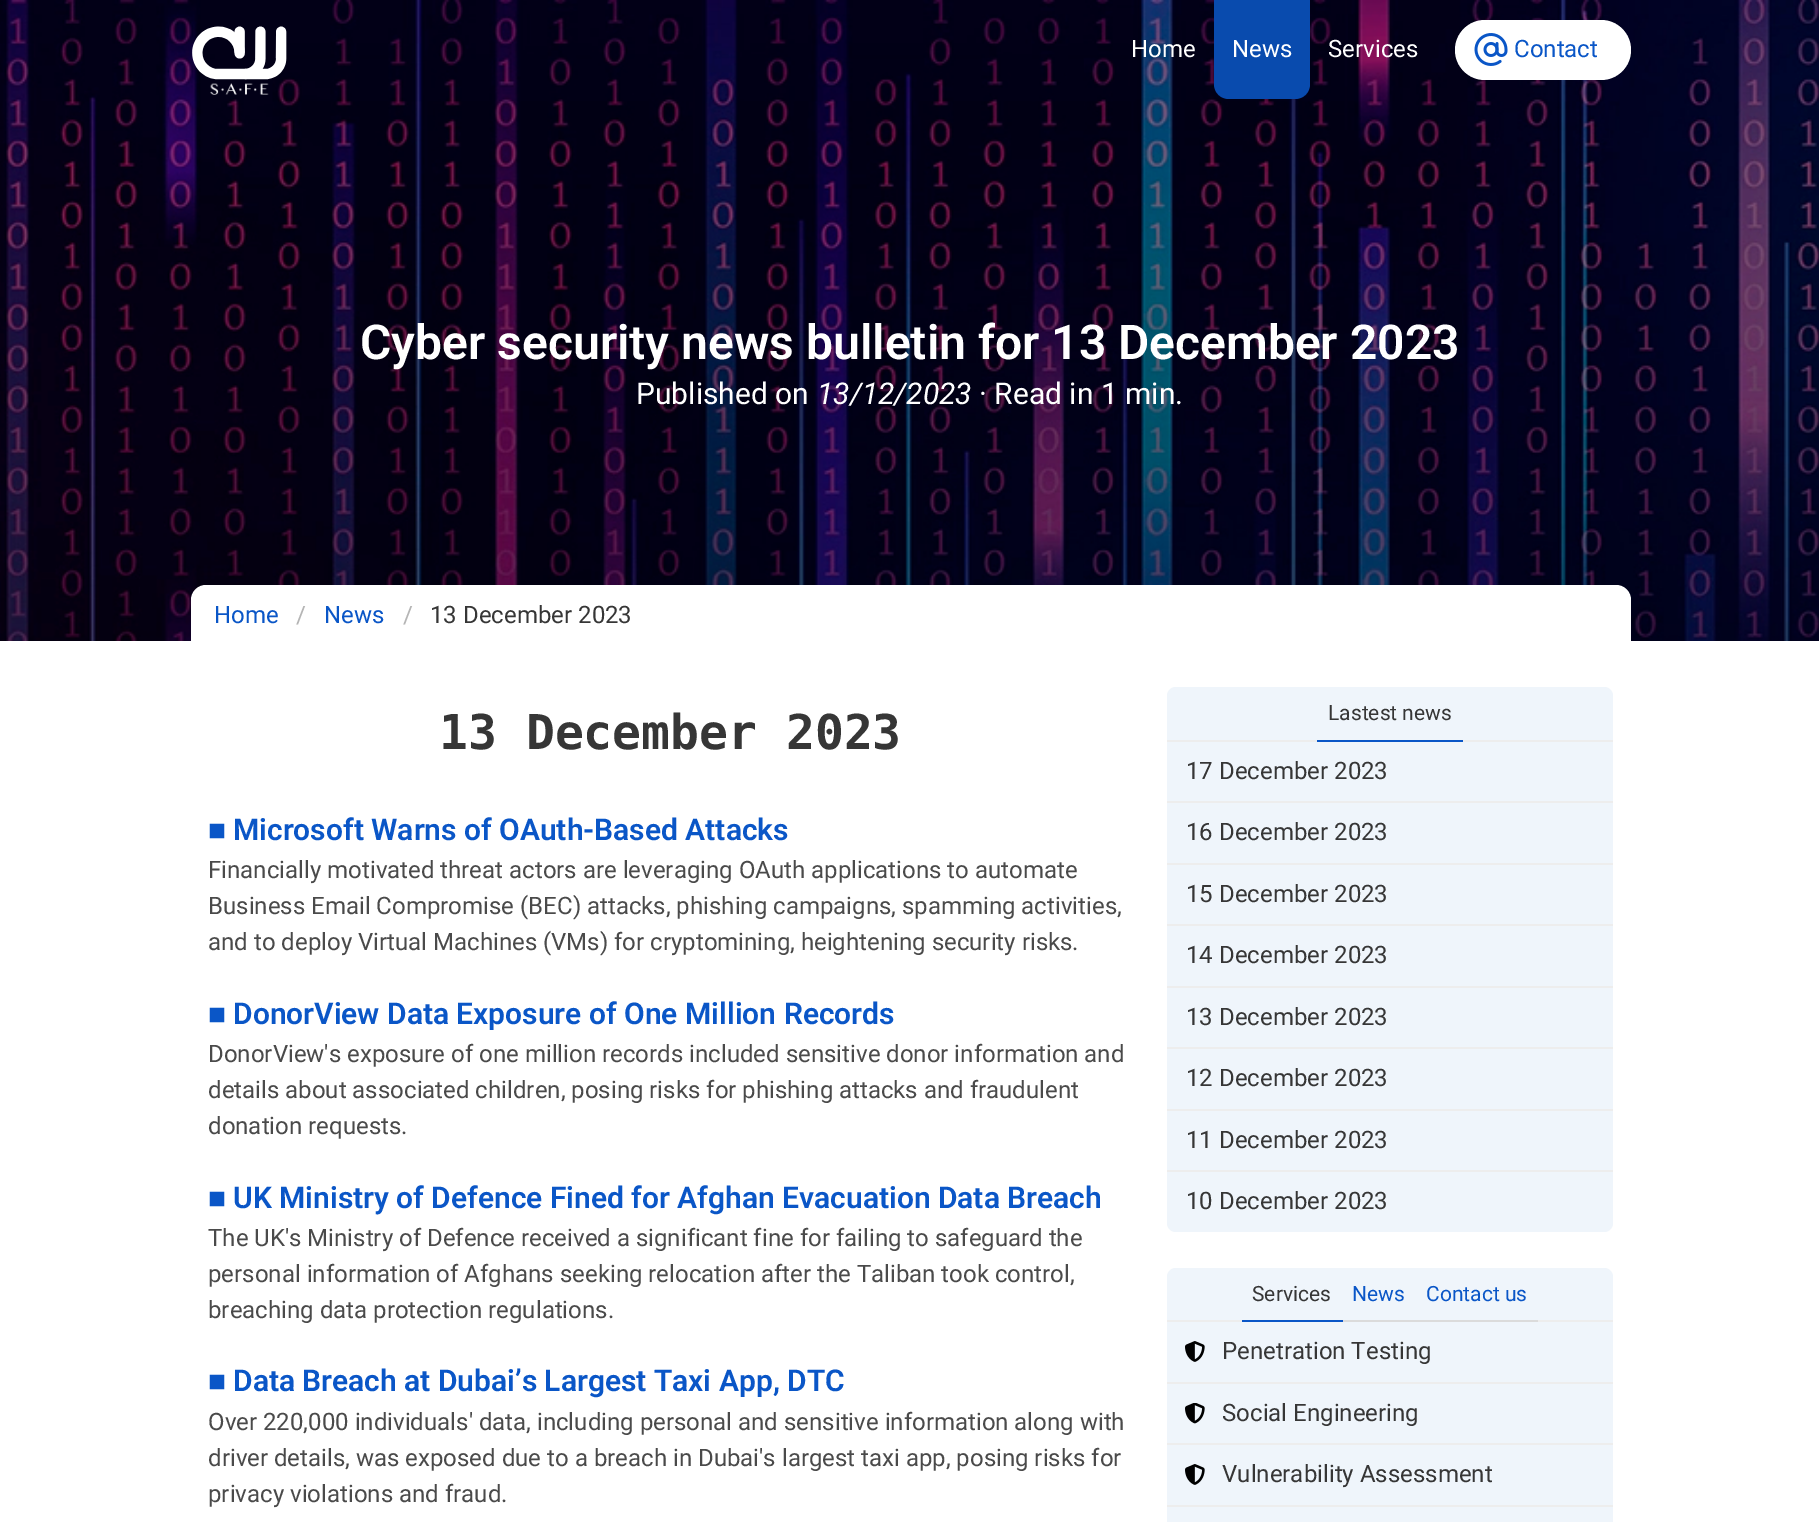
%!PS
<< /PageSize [1819 1522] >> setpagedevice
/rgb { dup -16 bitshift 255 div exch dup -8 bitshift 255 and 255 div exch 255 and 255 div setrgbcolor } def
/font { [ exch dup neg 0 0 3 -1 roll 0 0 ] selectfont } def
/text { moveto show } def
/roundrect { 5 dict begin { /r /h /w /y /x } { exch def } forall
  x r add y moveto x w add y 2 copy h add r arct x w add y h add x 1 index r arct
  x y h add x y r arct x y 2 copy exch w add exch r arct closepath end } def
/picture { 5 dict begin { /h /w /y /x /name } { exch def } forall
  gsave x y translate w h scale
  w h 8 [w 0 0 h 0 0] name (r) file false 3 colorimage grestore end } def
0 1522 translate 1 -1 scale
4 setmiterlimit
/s1 { /Roboto-Regular 24 font 16#FFFFFF rgb } def
/s2 { /Roboto-Regular 24 font 16#0A56C7 rgb } def
/s3 { /Roboto-SemiBold 48 font 16#FFFFFF rgb } def
/s4 { /Roboto-Regular 30 font 16#FFFFFF rgb } def
/s5 { /Roboto-Italic 30 font 16#FFFFFF rgb } def
/s6 { /Roboto-Regular 24 font 16#B5B5B5 rgb } def
/s7 { /Roboto-Regular 24 font 16#363636 rgb } def
/s8 { /DejaVuSansMono-Bold 48 font 16#363636 rgb } def
/s9 { /LiberationSans-Bold 30 font 16#0A56C7 rgb } def
/s10 { /Roboto-SemiBold 30 font 16#0A56C7 rgb } def
/s11 { /Roboto-Regular 24 font 16#4A4A4A rgb } def
/s12 { /Roboto-Regular 21 font 16#363636 rgb } def
/s13 { /Roboto-Regular 21 font 16#0A56C7 rgb } def
16#FFFFFF rgb
0 0 1819 1522 rectfill
(pic1.raw) 0 0 1819 641 picture
(pic2.raw) 192 26 95 69 picture
s1
(Home) 1131 57 text
16#094BAE rgb
1214 0 moveto 1310 0 lineto 1310 84 lineto 1310 92.5 1303.5 99 1295 99 curveto 1229 99 lineto 1220.5 99 1214 92.5 1214 84 curveto closepath fill
s1
(News) 1232 57 text
(Services) 1328 57 text
1455 20 176 60 30 roundrect fill
(pic3.raw) 1474 33 34 33 picture
s2
(Contact) 1514 57 text
s3
(Cyber security news bulletin for 13 December 2023) 360 359 text
s4
(Published on) 636 404 text
s5
(13/12/2023) 817 404 text
s4
(· Read in 1 min.) 979 404 text
191 585 1440 72 15 roundrect fill
s2
(Home) 214 623 text
s6
(/) 296 623 text
s2
(News) 324 623 text
s6
(/) 403 623 text
s7
(13 December 2023) 430 623 text
s8
(13 December 2023) 439 749 text
s9
(■) 208 840 text
s10
(Microsoft Warns of OAuth-Based Attacks) 233 840 text
s11
(Financially motivated threat actors are leveraging OAuth applications to automate) 208 878 text
(Business Email Compromise \(BEC\) attacks, phishing campaigns, spamming activities,) 208 914 text
(and to deploy Virtual Machines \(VMs\) for cryptomining, heightening security risks.) 208 950 text
s9
(■) 208 1024 text
s10
(DonorView Data Exposure of One Million Records) 233 1024 text
s11
(DonorView's exposure of one million records included sensitive donor information and) 208 1062 text
(details about associated children, posing risks for phishing attacks and fraudulent) 208 1098 text
(donation requests.) 208 1134 text
s9
(■) 208 1208 text
s10
(UK Ministry of Defence Fined for Afghan Evacuation Data Breach) 233 1208 text
s11
(The UK's Ministry of Defence received a significant fine for failing to safeguard the) 208 1246 text
(personal information of Afghans seeking relocation after the Taliban took control,) 208 1282 text
(breaching data protection regulations.) 208 1318 text
s9
(■) 208 1391 text
s10
(Data Breach at Dubai’s Largest Taxi App, DTC) 233 1391 text
s11
(Over 220,000 individuals' data, including personal and sensitive information along with) 208 1430 text
(driver details, was exposed due to a breach in Dubai's largest taxi app, posing risks for) 208 1466 text
(privacy violations and fraud.) 208 1502 text
16#EFF5FB rgb
1167 687 446 545 9 roundrect fill
16#EDEDED rgb
1167 740 446 2 rectfill
16#0A56C7 rgb
1317 740 146 2 rectfill
s12
(Lastest news) 1328 720 text
16#EDEDED rgb
1167 801 446 2 rectfill
s7
(17 December 2023) 1186 779 text
16#EDEDED rgb
1167 863 446 2 rectfill
s7
(16 December 2023) 1186 840 text
16#EDEDED rgb
1167 924 446 2 rectfill
s7
(15 December 2023) 1186 902 text
16#EDEDED rgb
1167 986 446 2 rectfill
s7
(14 December 2023) 1186 963 text
16#EDEDED rgb
1167 1047 446 2 rectfill
s7
(13 December 2023) 1186 1025 text
16#EDEDED rgb
1167 1109 446 2 rectfill
s7
(12 December 2023) 1186 1086 text
16#EDEDED rgb
1167 1170 446 2 rectfill
s7
(11 December 2023) 1186 1148 text
(10 December 2023) 1186 1209 text
16#EFF5FB rgb
1167 1268 446 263 9 roundrect fill
16#EDEDED rgb
1167 1320 446 2 rectfill
16#0A56C7 rgb
1242 1320 101 2 rectfill
s12
(Services) 1252 1301 text
16#DBDBDB rgb
1343 1320 195 2 rectfill
s13
(News) 1352 1301 text
(Contact us) 1426 1301 text
16#EDEDED rgb
1167 1382 446 2 rectfill
(pic4.raw) 1185 1341 20 21 picture
s7
(Penetration Testing) 1222 1359 text
16#EDEDED rgb
1167 1443 446 2 rectfill
(pic5.raw) 1185 1403 20 21 picture
s7
(Social Engineering) 1222 1421 text
16#EDEDED rgb
1167 1505 446 2 rectfill
(pic4.raw) 1185 1464 20 21 picture
s7
(Vulnerability Assessment) 1222 1482 text
showpage
